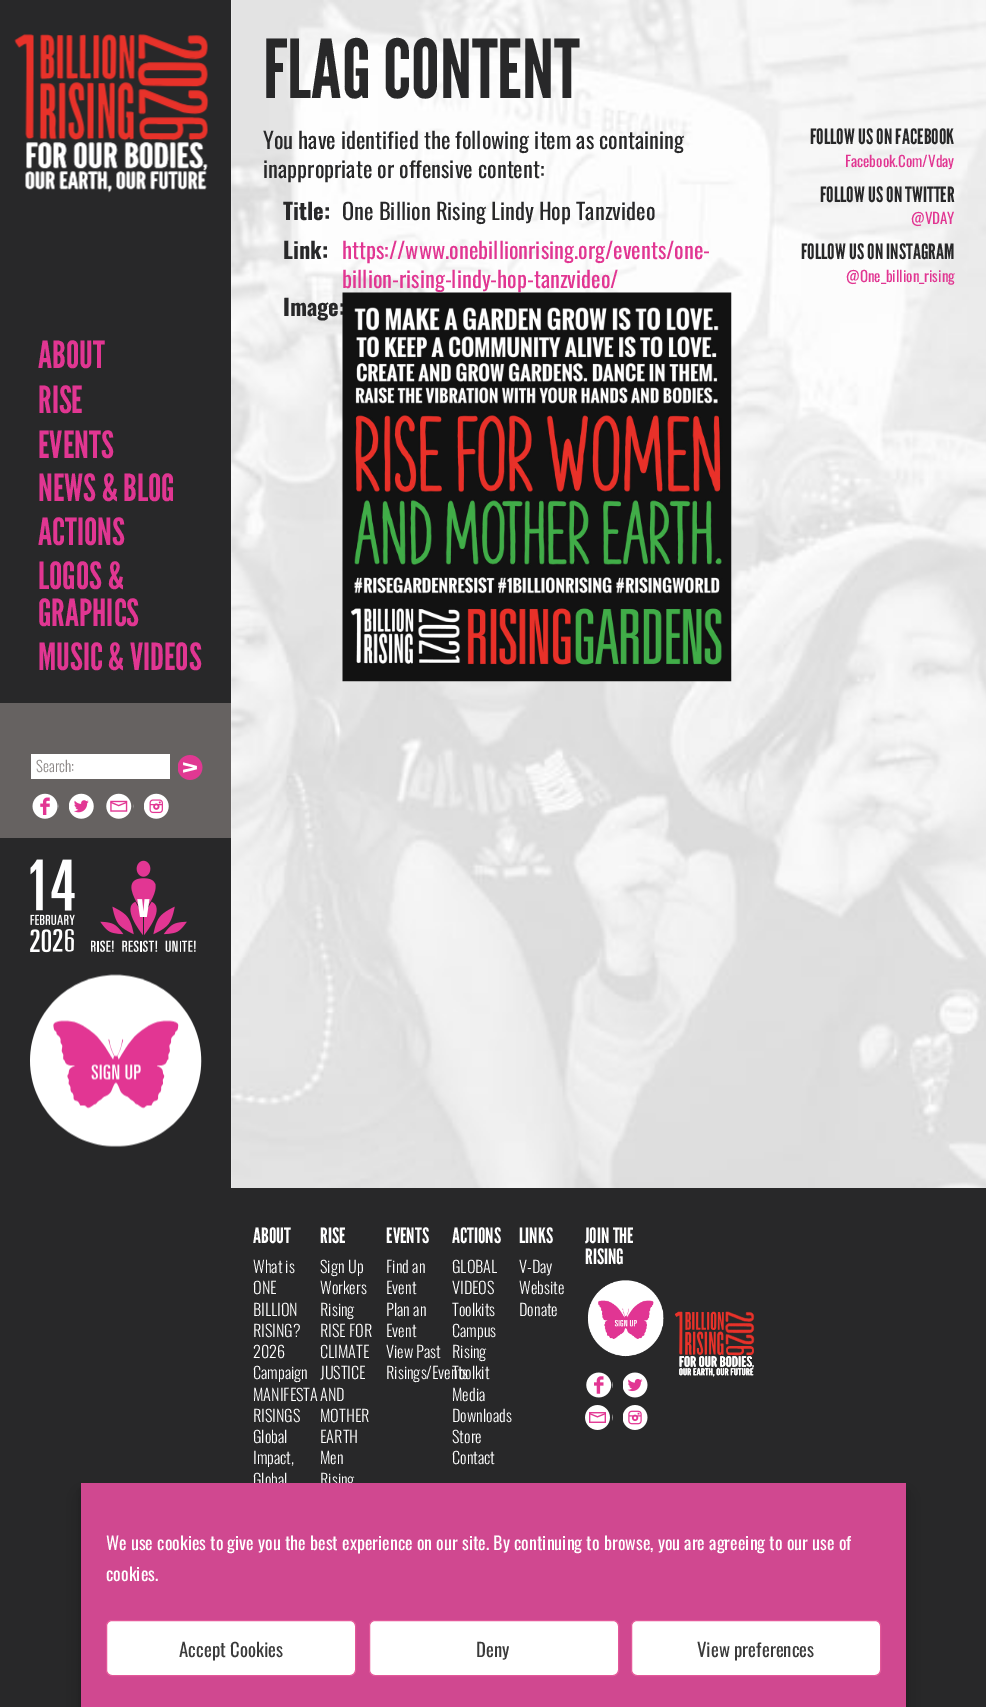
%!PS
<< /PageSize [986 1707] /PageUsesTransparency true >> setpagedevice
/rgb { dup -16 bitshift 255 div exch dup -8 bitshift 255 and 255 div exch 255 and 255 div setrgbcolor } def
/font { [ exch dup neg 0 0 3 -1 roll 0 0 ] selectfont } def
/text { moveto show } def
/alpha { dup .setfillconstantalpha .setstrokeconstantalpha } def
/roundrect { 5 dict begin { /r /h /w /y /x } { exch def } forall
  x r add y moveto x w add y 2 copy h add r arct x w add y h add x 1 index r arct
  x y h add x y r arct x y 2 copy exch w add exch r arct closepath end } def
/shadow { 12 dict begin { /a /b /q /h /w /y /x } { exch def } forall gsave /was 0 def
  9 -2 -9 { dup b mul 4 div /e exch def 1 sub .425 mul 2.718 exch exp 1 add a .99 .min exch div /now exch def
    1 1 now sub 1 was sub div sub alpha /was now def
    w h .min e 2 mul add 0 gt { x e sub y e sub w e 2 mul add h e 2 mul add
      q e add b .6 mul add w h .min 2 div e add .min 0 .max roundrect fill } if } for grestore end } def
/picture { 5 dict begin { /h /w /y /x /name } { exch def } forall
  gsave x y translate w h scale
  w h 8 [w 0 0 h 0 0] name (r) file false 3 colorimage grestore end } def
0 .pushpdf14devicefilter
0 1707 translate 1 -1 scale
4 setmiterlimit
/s1 { /LeagueGothic-Regular 81 font 16#282829 rgb } def
/s2 { /Oswald-Regular 22.5 font 16#282829 rgb } def
/s3 { /Oswald-Bold 22.5 font 16#282829 rgb } def
/s4 { /Oswald-Regular 22.5 font 16#E13692 rgb } def
/s5 { /LeagueGothic-Regular 21.25 font 16#282829 rgb } def
/s6 { /Oswald-Regular 15 font 16#E13692 rgb } def
/s7 { /LeagueGothic-Regular 37.5 font 16#E13692 rgb } def
/s8 { /Oswald-Light 15 font 16#8D8887 rgb } def
/s9 { /LeagueGothic-Regular 21.25 font 16#FFFFFF rgb } def
/s10 { /Oswald-Light 16.25 font 16#FFFFFF rgb } def
/s11 { /Oswald-Regular 18 font 16#FFFFFF rgb } def
/s12 { /Oswald-Regular 18.75 font 16#3A3A3A rgb } def
16#282829 rgb
0 0 986 1707 rectfill
(pic1.raw) 231 0 755 1188 picture
s1
(FLAG CONTENT) 263 98 text
s2
(You have identified the following item as containing) 263 149 text
(inappropriate or offensive content:) 263 178 text
s3
(Title:) 283 220 text
s2
(One Billion Rising Lindy Hop Tanzvideo) 342 220 text
s3
(Link:) 283 259 text
s4
(https://www.onebillionrising.org/events/one-) 342 259 text
(billion-rising-lindy-hop-tanzvideo/) 342 288 text
s3
(Image:) 283 316 text
(pic2.raw) 342 292 390 390 picture
s5
(FOLLOW US ON FACEBOOK) 810 144 text
s6
(Facebook.Com/Vday) 845 167 text
s5
(FOLLOW US ON TWITTER) 820 202 text
s6
(@VDAY) 911 224 text
s5
(FOLLOW US ON INSTAGRAM) 801 259 text
s6
(@One_billion_rising) 846 282 text
(pic3.raw) 14 34 195 159 picture
s7
(ABOUT) 38 368 text
(RISE) 38 413 text
(EVENTS) 38 458 text
(NEWS & BLOG) 38 501 text
(ACTIONS) 38 545 text
(LOGOS &) 38 589 text
(GRAPHICS) 38 626 text
(MUSIC & VIDEOS) 38 670 text
16#666261 rgb
0 703 231 135 rectfill
16#FFFFFF rgb
31 754 139 25 rectfill
s8
(Search:) 36 772 text
(pic4.raw) 178 755 25 25 picture
(pic5.raw) 32 793 27 26 picture
(pic6.raw) 69 793 25 26 picture
(pic7.raw) 106 793 28 26 picture
(pic8.raw) 144 793 25 26 picture
(pic9.raw) 30 859 166 94 picture
(pic10.raw) 30 974 172 173 picture
s9
(ABOUT) 253 1243 text
s10
(What is) 253 1273 text
(ONE) 253 1294 text
(BILLION) 253 1316 text
(RISING?) 253 1337 text
(2026) 253 1358 text
(Campaign) 253 1379 text
(MANIFESTA) 253 1401 text
(RISINGS) 253 1422 text
(Global) 253 1443 text
(Impact,) 253 1464 text
(Global) 253 1486 text
s9
(RISE) 320 1243 text
s10
(Sign Up) 320 1273 text
(Workers) 320 1294 text
(Rising) 320 1316 text
(RISE FOR) 320 1337 text
(CLIMATE) 320 1358 text
(JUSTICE) 320 1379 text
(AND) 320 1401 text
(MOTHER) 320 1422 text
(EARTH) 320 1443 text
(Men) 320 1464 text
(Rising) 320 1486 text
s9
(EVENTS) 386 1243 text
s10
(Find an) 386 1273 text
(Event) 386 1294 text
(Plan an) 386 1316 text
(Event) 386 1337 text
(View Past) 386 1358 text
(Risings/Events) 386 1379 text
s9
(ACTIONS) 452 1243 text
s10
(GLOBAL) 452 1273 text
(VIDEOS) 452 1294 text
(Toolkits) 452 1316 text
(Campus) 452 1337 text
(Rising) 452 1358 text
(Toolkit) 452 1379 text
(Media) 452 1401 text
(Downloads) 452 1422 text
(Store) 452 1443 text
(Contact) 452 1464 text
s9
(LINKS) 519 1243 text
s10
(V-Day) 519 1273 text
(Website) 519 1294 text
(Donate) 519 1316 text
s9
(JOIN THE) 585 1243 text
(RISING) 585 1264 text
(pic11.raw) 587 1280 77 77 picture
(pic12.raw) 586 1372 27 26 picture
(pic13.raw) 623 1372 25 26 picture
(pic14.raw) 585 1405 28 25 picture
(pic15.raw) 623 1405 25 25 picture
(pic16.raw) 674 1311 81 66 picture
16#000000 rgb
81 1490 825 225 0 4 0.23 shadow
81 1495 825 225 0 12.5 0.19 shadow
16#D04890 rgb
81 1483 825 224 rectfill
s11
(We use cookies to give you the best experience on our site. By continuing to browse, you are agreeing to our use of) 106 1550 text
(cookies.) 106 1581 text
106.5 1620.5 249 55 5.5 roundrect gsave fill grestore
16#E35899 rgb
stroke
s12
(Accept Cookies) 179 1657 text
16#FFFFFF rgb
369.5 1620.5 249 55 5.5 roundrect gsave fill grestore
16#E35899 rgb
stroke
s12
(Deny) 476 1657 text
16#FFFFFF rgb
631.5 1620.5 249 55 5.5 roundrect gsave fill grestore
16#E35899 rgb
stroke
s12
(View preferences) 697 1657 text
.poppdf14devicefilter showpage
